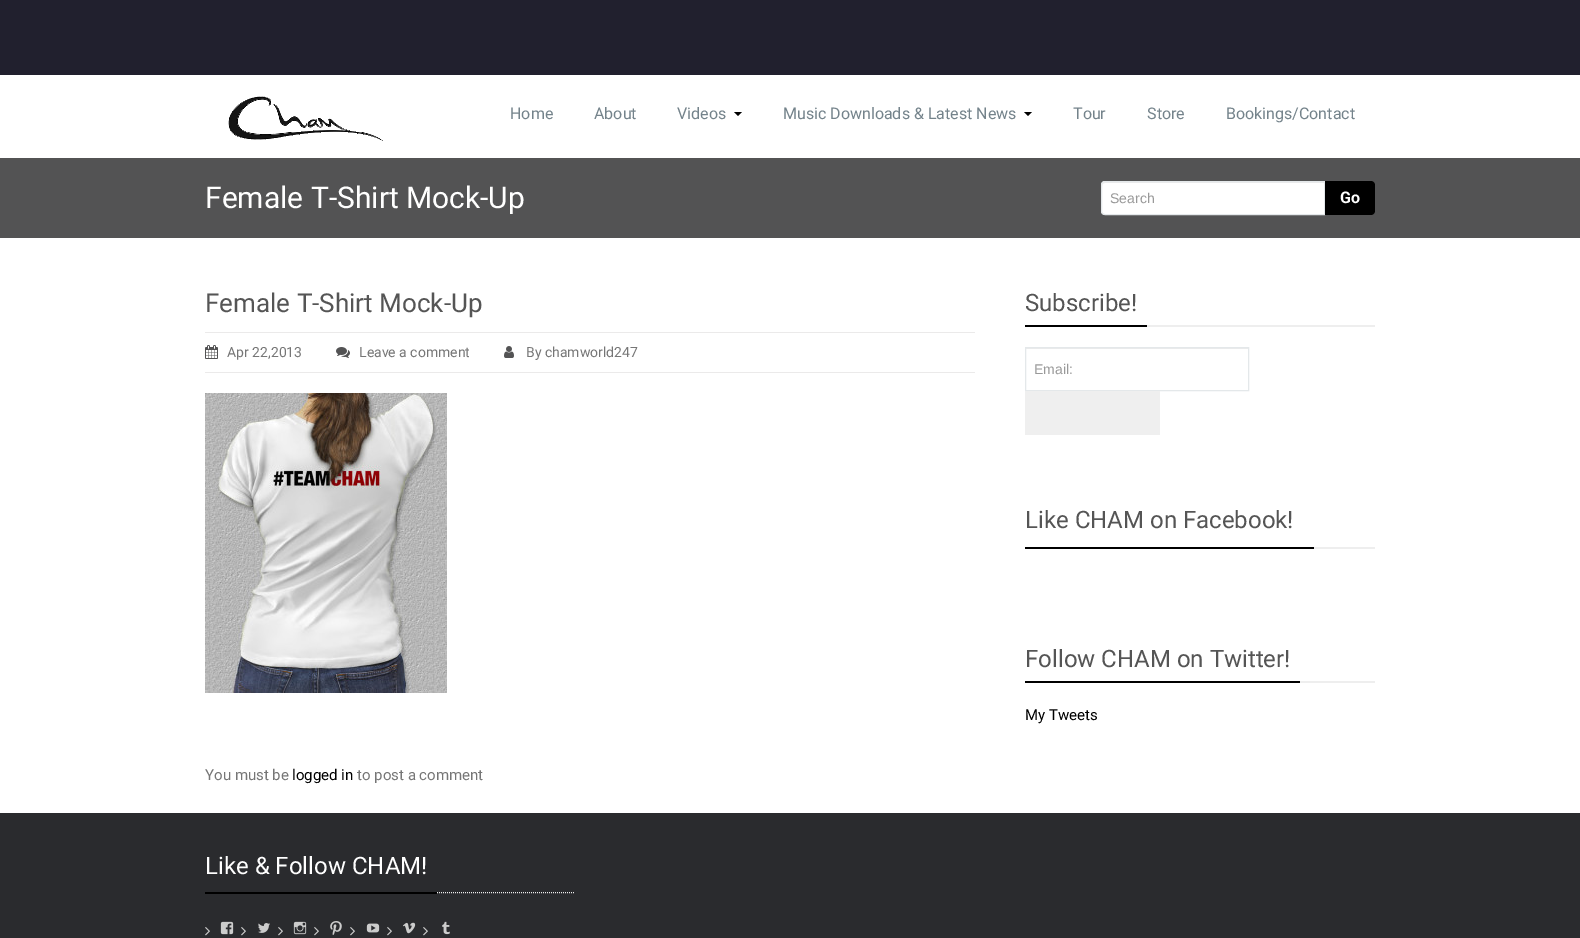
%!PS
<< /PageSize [1580 938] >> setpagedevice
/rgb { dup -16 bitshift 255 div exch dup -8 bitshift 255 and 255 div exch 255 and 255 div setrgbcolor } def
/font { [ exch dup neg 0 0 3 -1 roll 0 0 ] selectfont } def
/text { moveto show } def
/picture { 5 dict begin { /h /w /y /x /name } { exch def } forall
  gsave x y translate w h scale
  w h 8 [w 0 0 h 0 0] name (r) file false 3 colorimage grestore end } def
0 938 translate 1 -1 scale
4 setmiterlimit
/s1 { /Roboto-Regular 16 font 16#74838B rgb } def
/s2 { /Roboto-Regular 30 font 16#FFFFFF rgb } def
/s3 { /LiberationSans-Regular 14 font 16#999999 rgb } def
/s4 { /Roboto-Bold 16 font 16#FFFFFF rgb } def
/s5 { /Roboto-Regular 26 font 16#555555 rgb } def
/s6 { /Roboto-Regular 14 font 16#767676 rgb } def
/s7 { /Roboto-Regular 15 font 16#767676 rgb } def
/s8 { /Roboto-Regular 15 font 16#000000 rgb } def
/s9 { /Roboto-Regular 24 font 16#555555 rgb } def
/s10 { /Roboto-Regular 24 font 16#FFFFFF rgb } def
16#FFFFFF rgb
0 0 1580 938 rectfill
16#21202E rgb
0 0 1580 75 rectfill
(pic1.raw) 228 96 155 45 picture
s1
(Home) 510 119 text
(About) 594 119 text
(Videos) 677 119 text
16#000000 rgb
734 112 moveto 742 112 lineto 738 116 lineto closepath fill
s1
(Music Downloads & Latest News) 783 119 text
16#000000 rgb
1024 112 moveto 1032 112 lineto 1028 116 lineto closepath fill
s1
(Tour) 1073 119 text
(Store) 1147 119 text
(Bookings/Contact) 1226 119 text
16#535354 rgb
0 158 1580 80 rectfill
s2
(Female T-Shirt Mock-Up) 205 208 text
1105 181 moveto 1325 181 lineto 1325 215 lineto 1105 215 lineto 1103 215 1101 213 1101 211 curveto 1101 185 lineto 1101 183 1103 181 1105 181 curveto closepath fill
16#ECECEC rgb
1105 183 moveto 1324 183 lineto 1324 182 lineto 1105 182 lineto 1103 182 1102 184 1102 186 curveto 1102 184 1103 183 1105 183 curveto closepath fill
16#E4E8EA rgb
1105 181.5 moveto 1324.5 181.5 lineto 1324.5 214.5 lineto 1105 214.5 lineto 1103 214.5 1101.5 213 1101.5 211 curveto 1101.5 185 lineto 1101.5 183 1103 181.5 1105 181.5 curveto closepath stroke
s3
(Search) 1110 203 text
16#000000 rgb
1325 181 moveto 1371 181 lineto 1373 181 1375 183 1375 185 curveto 1375 211 lineto 1375 213 1373 215 1371 215 curveto 1325 215 lineto closepath fill
s4
(Go) 1340 203 text
s5
(Female T-Shirt Mock-Up) 205 312 text
16#EBEAEA rgb
205 332 770 1 rectfill
205 372 770 1 rectfill
(pic2.raw) 205 345 13 14 picture
s6
(Apr 22,2013) 227 357 text
(pic3.raw) 336 347 14 11 picture
(Leave a comment) 359 357 text
(pic4.raw) 504 346 10 12 picture
(By chamworld247) 526 357 text
(pic5.raw) 205 393 242 300 picture
s7
(You must be) 205 780 text
s8
(logged in) 292 780 text
s7
(to post a comment) 357 780 text
16#EEEEEE rgb
1147 325 228 2 rectfill
16#000000 rgb
1025 325 122 2 rectfill
s9
(Subscribe!) 1025 311 text
16#ECECEC rgb
1026 348 222 1 rectfill
16#E4E8EA rgb
1025.5 347.5 223 43 rectstroke
s3
(Email:) 1034 374 text
16#EFEFEF rgb
1025 391 135 44 rectfill
16#EEEEEE rgb
1314 547 61 2 rectfill
16#000000 rgb
1025 547 289 2 rectfill
s9
(Like CHAM on Facebook!) 1025 528 text
16#EEEEEE rgb
1300 681 75 2 rectfill
16#000000 rgb
1025 681 275 2 rectfill
s9
(Follow CHAM on Twitter!) 1025 667 text
s8
(My Tweets) 1025 720 text
16#2A2B2E rgb
0 813 1580 125 rectfill
16#EEEEEE rgb
[1 1] 0 setdash
205 892.5 moveto 575 892.5 lineto stroke
16#000000 rgb
205 892 232 2 rectfill
s10
(Like & Follow CHAM!) 205 874 text
(pic6.raw) 205 927 5 9 picture
(pic7.raw) 220 921 14 14 picture
(pic6.raw) 241 927 5 9 picture
(pic8.raw) 258 923 12 10 picture
(pic6.raw) 278 927 5 9 picture
(pic9.raw) 293 921 14 14 picture
(pic6.raw) 314 927 5 9 picture
(pic10.raw) 330 921 12 14 picture
(pic6.raw) 350 927 5 9 picture
(pic11.raw) 366 923 14 10 picture
(pic6.raw) 387 927 5 9 picture
(pic12.raw) 403 922 13 12 picture
(pic6.raw) 423 927 5 9 picture
(pic13.raw) 442 921 8 14 picture
showpage
